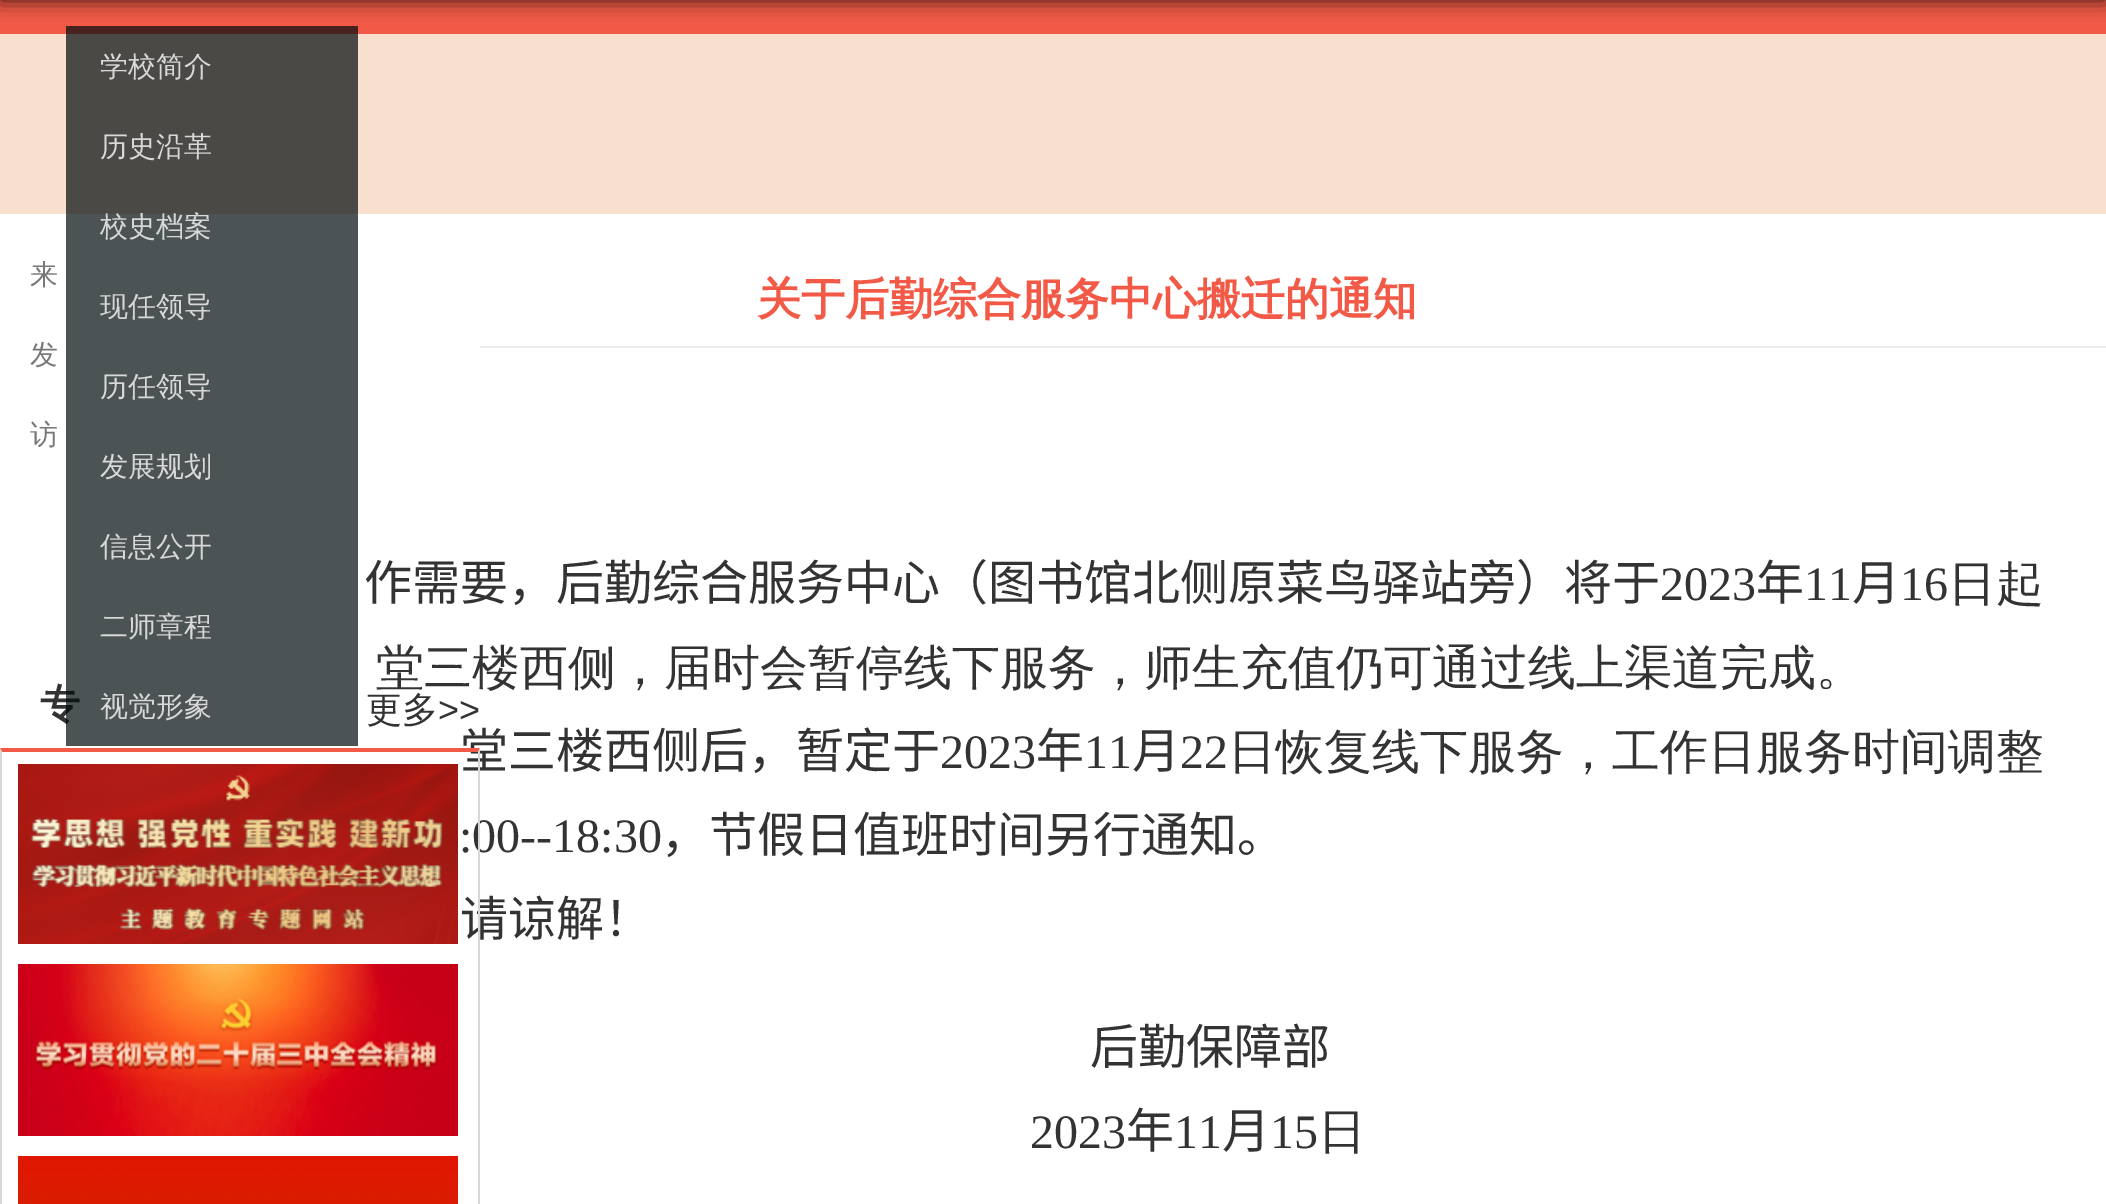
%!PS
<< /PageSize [2106 1204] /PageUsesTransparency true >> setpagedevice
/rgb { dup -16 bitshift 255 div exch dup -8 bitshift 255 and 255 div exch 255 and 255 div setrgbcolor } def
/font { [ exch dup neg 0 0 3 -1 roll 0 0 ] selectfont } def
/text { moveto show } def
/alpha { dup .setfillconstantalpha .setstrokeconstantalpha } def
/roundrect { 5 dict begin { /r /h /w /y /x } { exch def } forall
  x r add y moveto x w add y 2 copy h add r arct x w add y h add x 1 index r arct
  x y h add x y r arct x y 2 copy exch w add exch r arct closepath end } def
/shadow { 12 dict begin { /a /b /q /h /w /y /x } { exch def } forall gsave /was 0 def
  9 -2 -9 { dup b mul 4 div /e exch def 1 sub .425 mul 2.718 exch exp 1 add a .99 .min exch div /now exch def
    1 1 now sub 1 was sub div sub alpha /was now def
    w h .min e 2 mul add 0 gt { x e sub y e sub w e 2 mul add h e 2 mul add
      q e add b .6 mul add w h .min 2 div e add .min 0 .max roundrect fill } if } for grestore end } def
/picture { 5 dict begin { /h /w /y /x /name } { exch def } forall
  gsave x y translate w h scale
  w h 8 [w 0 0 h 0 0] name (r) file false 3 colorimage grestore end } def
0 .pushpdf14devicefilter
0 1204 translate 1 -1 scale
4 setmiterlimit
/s1 { /WenQuanYiZenHei-Bold 40 font 16#333333 rgb } def
/s2 { /WenQuanYiZenHei-Medium 28 font 16#D8D8D8 rgb } def
/s3 { /WenQuanYiZenHei-Medium 28 font 16#787878 rgb } def
/s4 { /WenQuanYiZenHei-Bold 44 font 16#F25A47 rgb } def
/s5 { /NotoSansCJKSC-Regular 48 font 16#333333 rgb } def
/s6 { /LiberationSerif-Regular 48 font 16#333333 rgb } def
/s7 { /WenQuanYiZenHei-Medium 48 font 16#333333 rgb } def
/s8 { /WenQuanYiZenHei-Medium 36 font 16#333333 rgb } def
/s9 { /LiberationSans-Regular 36 font 16#333333 rgb } def
16#F9DFCD rgb
0 0 2106 1204 rectfill
16#F25A47 rgb
0 0 2106 34 rectfill
16#FFFFFF rgb
0 214 2106 990 rectfill
s1
(专) 40 718 text
0.7 alpha
16#000A0D rgb
66 26 292 720 rectfill
1 alpha
16#000000 rgb
0 -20 2106 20 0 10 0.8 shadow
s2
(学校简介) 100 76 text
(历史沿革) 100 156 text
(校史档案) 100 236 text
(现任领导) 100 316 text
(历任领导) 100 396 text
(发展规划) 100 476 text
(信息公开) 100 556 text
(二师章程) 100 636 text
(视觉形象) 100 716 text
s3
(来) 30 284 text
(发) 30 364 text
(访) 30 444 text
16#ECECEC rgb
480 346 1626 2 rectfill
s4
(关于后勤综合服务中心搬迁的通知) 757 314 text
s5
(作需要，后勤综合服务中心（图书馆北侧原菜鸟驿站旁）将于) 364 600 text
s6
(2023) 1660 600 text
s5
(年) 1756 600 text
s6
(11) 1804 600 text
s5
(月) 1852 600 text
s6
(16) 1900 600 text
s7
(日起) 1948 600 text
(堂三楼西侧，届时会暂停线下服务，师生充值仍可通过线上渠道完成。) 376 684 text
s5
(堂三楼西侧后，暂定于) 460 768 text
s6
(2023) 940 768 text
s5
(年) 1036 768 text
s6
(11) 1084 768 text
s5
(月) 1132 768 text
s6
(22) 1180 768 text
s7
(日恢复线下服务，工作日服务时间调整) 1228 768 text
s6
(:00--18:30) 459 852 text
s5
(，节假日值班时间另行通知。) 661 852 text
(请谅解！) 460 936 text
(后勤保障部) 1090 1064 text
s6
(2023) 1030 1148 text
s5
(年) 1126 1148 text
s6
(11) 1174 1148 text
s5
(月) 1222 1148 text
s6
(15) 1270 1148 text
s7
(日) 1318 1148 text
s8
(更多) 366 722 text
s9
(>>) 438 722 text
16#F25A47 rgb
0 748 moveto 480 748 lineto 478 752 lineto 2 752 lineto closepath fill
16#D7D7D7 rgb
480 748 moveto 480 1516 lineto 478 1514 lineto 478 752 lineto closepath fill
0 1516 moveto 0 748 lineto 2 752 lineto 2 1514 lineto closepath fill
(pic1.raw) 18 764 440 180 picture
(pic2.raw) 18 964 440 172 picture
(pic3.raw) 18 1156 440 48 picture
.poppdf14devicefilter showpage
